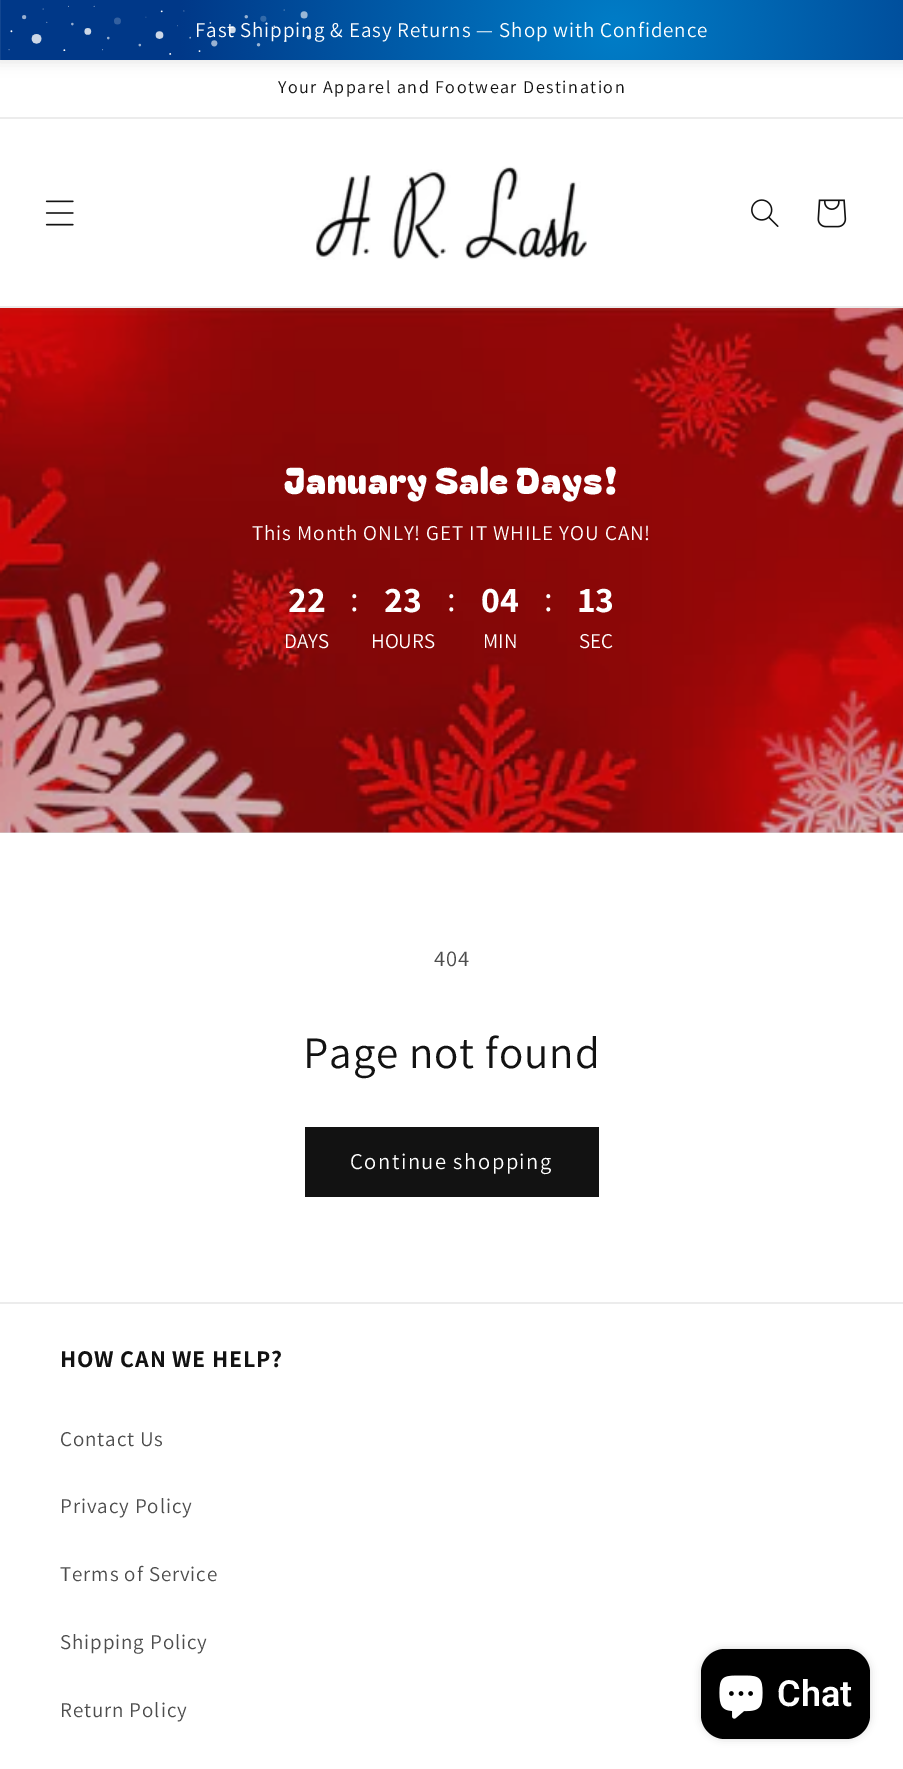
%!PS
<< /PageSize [903 1769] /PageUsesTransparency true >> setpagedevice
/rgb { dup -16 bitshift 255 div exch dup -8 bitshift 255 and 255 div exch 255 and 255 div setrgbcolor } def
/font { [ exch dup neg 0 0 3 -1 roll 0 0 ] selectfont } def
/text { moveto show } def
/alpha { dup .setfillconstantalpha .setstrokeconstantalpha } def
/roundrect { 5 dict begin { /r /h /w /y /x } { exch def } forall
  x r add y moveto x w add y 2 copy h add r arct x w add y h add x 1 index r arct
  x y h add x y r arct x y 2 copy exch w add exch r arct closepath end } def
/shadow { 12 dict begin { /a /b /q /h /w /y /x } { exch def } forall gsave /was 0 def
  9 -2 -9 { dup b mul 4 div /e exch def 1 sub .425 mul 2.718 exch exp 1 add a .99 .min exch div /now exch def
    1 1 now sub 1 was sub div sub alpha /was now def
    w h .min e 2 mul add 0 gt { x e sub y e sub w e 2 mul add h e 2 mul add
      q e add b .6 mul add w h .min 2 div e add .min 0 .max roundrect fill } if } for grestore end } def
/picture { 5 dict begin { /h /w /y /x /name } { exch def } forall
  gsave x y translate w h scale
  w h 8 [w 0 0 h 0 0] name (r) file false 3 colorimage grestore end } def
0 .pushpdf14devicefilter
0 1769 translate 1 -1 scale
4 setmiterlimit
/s1 { /Assistant-Bold 36 font 16#FFFFFF rgb } def
/s2 { /Assistant-Regular 21 font 16#FFFFFF rgb } def
/s3 { /Assistant-Regular 36 font 16#FFFFFF rgb } def
/s4 { /Roboto-SemiBold 36 font 16#FFFFFF rgb } def
16#FFFFFF rgb
0 0 903 1769 rectfill
16#D3D3D3 rgb
0 832 903 1 rectfill
16#000000 rgb
-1 -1 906 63 0 7 0.11 shadow
(pic1.raw) 0 0 903 60 picture
/Assistant-Regular 21 font
16#FFFFFF rgb
195 37 moveto 0.9 0 (Fast Shipping & Easy Returns — Shop with Confidence) ashow
16#ECECEC rgb
0 117 903 2 rectfill
/Assistant-Regular 18 font
16#121212 rgb
278 93 moveto 1.5 0 (Your Apparel and Footwear Destination) ashow
16#ECECEC rgb
0 306 903 2 rectfill
(pic2.raw) 45 200 29 26 picture
(pic3.raw) 316 166 271 94 picture
(pic4.raw) 751 199 28 28 picture
(pic5.raw) 817 199 30 29 picture
(pic6.raw) 0 308 903 525 picture
/BagelFatOne-Regular 36 font
16#FFFFFF rgb
284 494 moveto 0.9 0 (January Sale Days!) ashow
/Assistant-Regular 21.1 font
252 540 moveto 0.9 0 (This Month ONLY! GET IT WHILE YOU CAN!) ashow
s1
(22) 288 612 text
s2
(DAYS) 284 648 text
s3
(:) 350 611 text
s1
(23) 384 612 text
s2
(HOURS) 371 648 text
s3
(:) 447 611 text
s1
(04) 481 612 text
s2
(MIN) 483 648 text
s3
(:) 544 611 text
s1
(13) 578 612 text
s2
(SEC) 579 648 text
/Assistant-Regular 22.5 font
16#4D4D4D rgb
434 966 moveto 0.9 0 (404) ashow
/Assistant-Regular 45 font
16#121212 rgb
303 1068 moveto 0.9 0 (Page not found) ashow
305 1127 294 70 rectfill
/Assistant-Regular 22.5 font
16#FFFFFF rgb
350 1169 moveto 1.5 0 (Continue shopping) ashow
16#ECECEC rgb
0 1302 903 2 rectfill
/Assistant-Bold 24 font
16#121212 rgb
60 1367 moveto 0.9 0 (HOW CAN WE HELP?) ashow
/Assistant-Regular 21 font
16#4D4D4D rgb
60 1446 moveto 0.9 0 (Contact Us) ashow
60 1513 moveto 0.9 0 (Privacy Policy) ashow
60 1581 moveto 0.9 0 (Terms of Service) ashow
60 1649 moveto 0.9 0 (Shipping Policy) ashow
60 1717 moveto 0.9 0 (Return Policy) ashow
16#000000 rgb
701 1649 169 90 24 4 0.15 shadow
701 1649 169 90 24 roundrect fill
(pic7.raw) 719 1675 44 44 picture
s4
(Chat) 777 1706 text
.poppdf14devicefilter showpage
